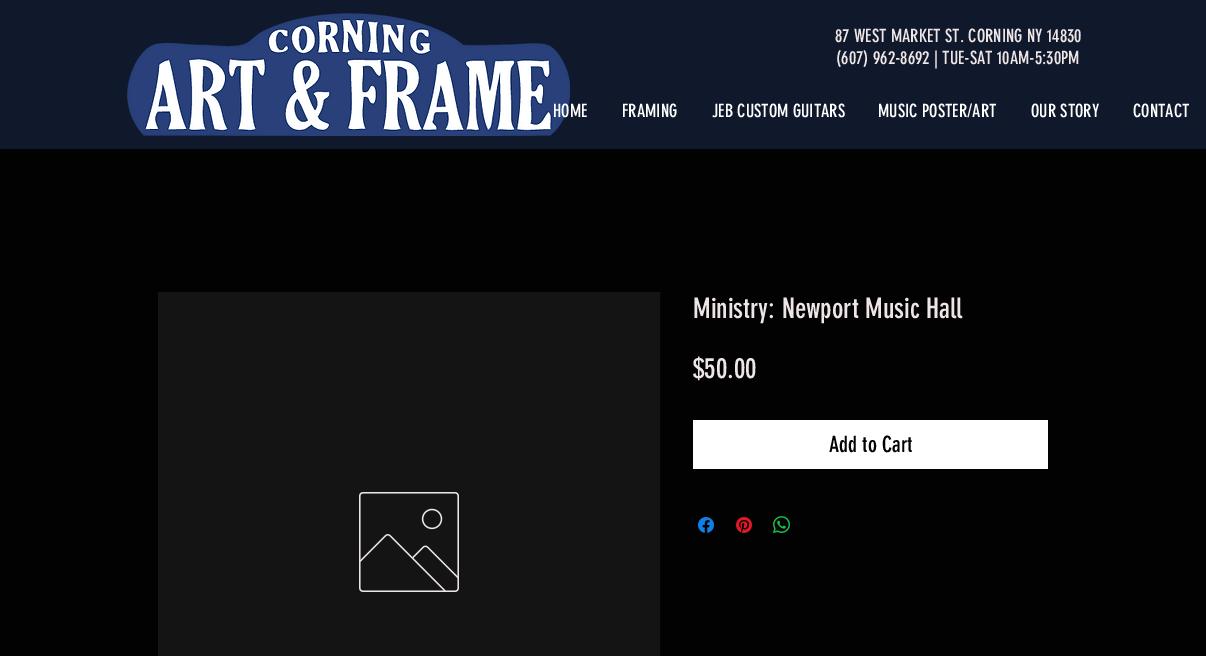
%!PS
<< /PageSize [1206 656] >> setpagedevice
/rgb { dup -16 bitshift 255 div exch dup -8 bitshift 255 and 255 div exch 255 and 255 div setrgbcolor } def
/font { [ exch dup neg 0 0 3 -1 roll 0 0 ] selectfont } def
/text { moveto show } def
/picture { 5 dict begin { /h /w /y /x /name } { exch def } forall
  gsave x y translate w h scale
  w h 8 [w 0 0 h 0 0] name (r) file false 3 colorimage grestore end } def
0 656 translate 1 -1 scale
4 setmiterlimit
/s1 { /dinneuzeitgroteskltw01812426-Regular 18 font 16#EEE6E6 rgb } def
/s2 { /dinneuzeitgroteskltw01812426-Regular 18 font 16#FFFFFF rgb } def
/s3 { /dinneuzeitgroteskltw01812426-Regular 28 font 16#EEE6E6 rgb } def
/s4 { /dinneuzeitgroteskltw01812426-Regular 22 font 16#020202 rgb } def
16#020202 rgb
0 0 1206 656 rectfill
16#10182B rgb
0 0 1206 149 rectfill
(pic1.raw) 127 13 443 123 picture
s1
(87 WEST MARKET ST. CORNING NY 14830) 835 42 text
(\(607\) 962-8692 | TUE-SAT 10AM-5:30PM) 836 64 text
s2
(HOME) 553 117 text
(FRAMING) 622 117 text
(JEB CUSTOM GUITARS) 712 117 text
(MUSIC POSTER/ART) 878 117 text
(OUR STORY) 1031 117 text
(CONTACT) 1133 117 text
16#141414 rgb
158.5 292.5 501 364 rectstroke
159 293 500 363 rectfill
(pic2.raw) 359 492 100 100 picture
s3
(Ministry: Newport Music Hall) 693 318 text
($50.00) 693 378 text
16#FFFFFF rgb
693 420 355 49 rectfill
s4
(Add to Cart) 829 452 text
(pic3.raw) 698 517 16 16 picture
(pic4.raw) 736 517 16 16 picture
(pic5.raw) 773 516 17 17 picture
showpage
